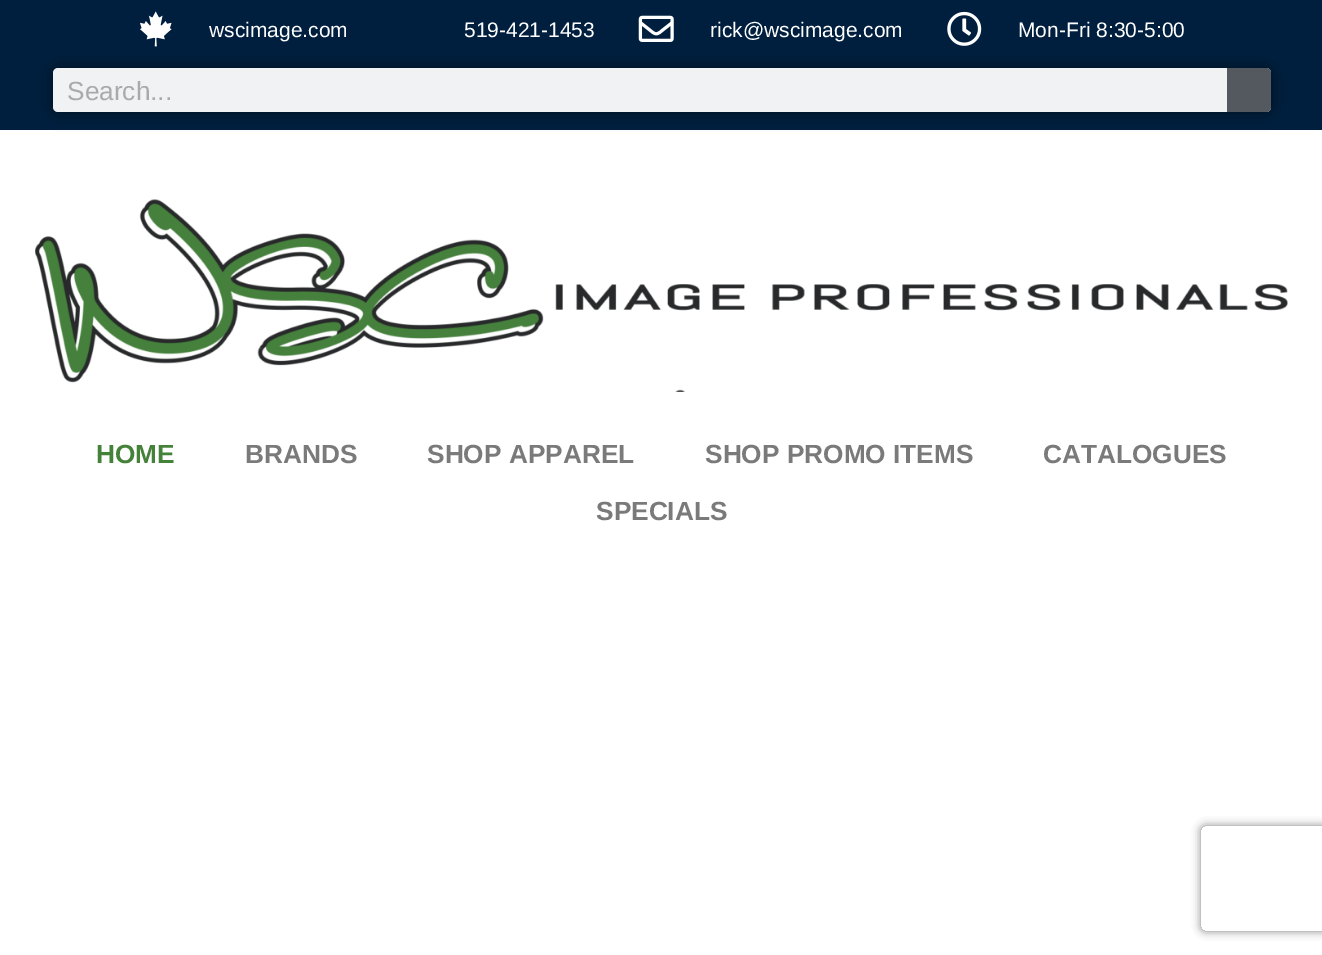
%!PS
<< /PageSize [1322 955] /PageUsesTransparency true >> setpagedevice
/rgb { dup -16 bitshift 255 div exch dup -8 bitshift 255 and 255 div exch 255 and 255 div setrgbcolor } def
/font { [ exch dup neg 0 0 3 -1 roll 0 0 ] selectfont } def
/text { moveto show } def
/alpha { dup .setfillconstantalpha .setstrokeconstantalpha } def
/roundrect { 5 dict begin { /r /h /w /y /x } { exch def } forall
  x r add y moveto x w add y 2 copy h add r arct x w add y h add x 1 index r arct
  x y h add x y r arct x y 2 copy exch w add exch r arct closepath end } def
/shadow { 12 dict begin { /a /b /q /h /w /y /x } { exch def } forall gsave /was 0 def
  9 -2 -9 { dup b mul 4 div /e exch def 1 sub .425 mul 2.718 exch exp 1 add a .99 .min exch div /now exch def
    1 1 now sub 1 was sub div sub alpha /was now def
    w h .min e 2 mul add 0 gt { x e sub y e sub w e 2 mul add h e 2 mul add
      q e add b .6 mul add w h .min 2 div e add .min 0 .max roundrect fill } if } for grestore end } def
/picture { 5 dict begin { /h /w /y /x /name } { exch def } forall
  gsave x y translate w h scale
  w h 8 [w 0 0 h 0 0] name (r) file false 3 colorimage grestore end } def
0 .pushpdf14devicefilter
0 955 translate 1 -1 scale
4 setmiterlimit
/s1 { /LiberationSans-Regular 21 font 16#FFFFFF rgb } def
/s2 { /LiberationSans-Regular 26.25 font 16#AAAAAA rgb } def
/s3 { /LiberationSans-Bold 26.25 font 16#44823A rgb } def
/s4 { /LiberationSans-Bold 26.25 font 16#7A7A7A rgb } def
16#FFFFFF rgb
0 0 1322 955 rectfill
16#001F3F rgb
0 0 1322 130 rectfill
(pic1.raw) 140 11 32 36 picture
s1
(wscimage.com) 209 37 text
(519-421-1453) 464 37 text
(pic2.raw) 638 15 36 27 picture
(rick@wscimage.com) 710 37 text
(pic3.raw) 947 11 35 35 picture
(Mon-Fri 8:30-5:00) 1018 37 text
16#000000 rgb
53 68 1218 44 5 9 0.5 shadow
16#F1F2F3 rgb
53 68 1218 44 5 roundrect fill
s2
(Search...) 67 100 text
16#54595F rgb
1227 68 moveto 1266 68 lineto 1269 68 1271 70 1271 73 curveto 1271 107 lineto 1271 110 1269 112 1266 112 curveto 1227 112 lineto closepath fill
(pic4.raw) 35 199 1253 193 picture
s3
(HOME) 96 463 text
s4
(BRANDS) 245 463 text
(SHOP APPAREL) 427 463 text
(SHOP PROMO ITEMS) 705 463 text
(CATALOGUES) 1043 463 text
(SPECIALS) 596 520 text
gsave
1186 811 moveto 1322 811 lineto 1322 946 lineto 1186 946 lineto closepath 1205 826 moveto 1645 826 lineto 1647 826 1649 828 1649 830 curveto 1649 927 lineto 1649 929 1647 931 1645 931 curveto 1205 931 lineto 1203 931 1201 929 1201 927 curveto 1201 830 lineto 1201 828 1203 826 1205 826 curveto closepath eoclip newpath
16#808080 rgb
1201 826 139 105 4 4.5 1 shadow
grestore
.poppdf14devicefilter showpage
